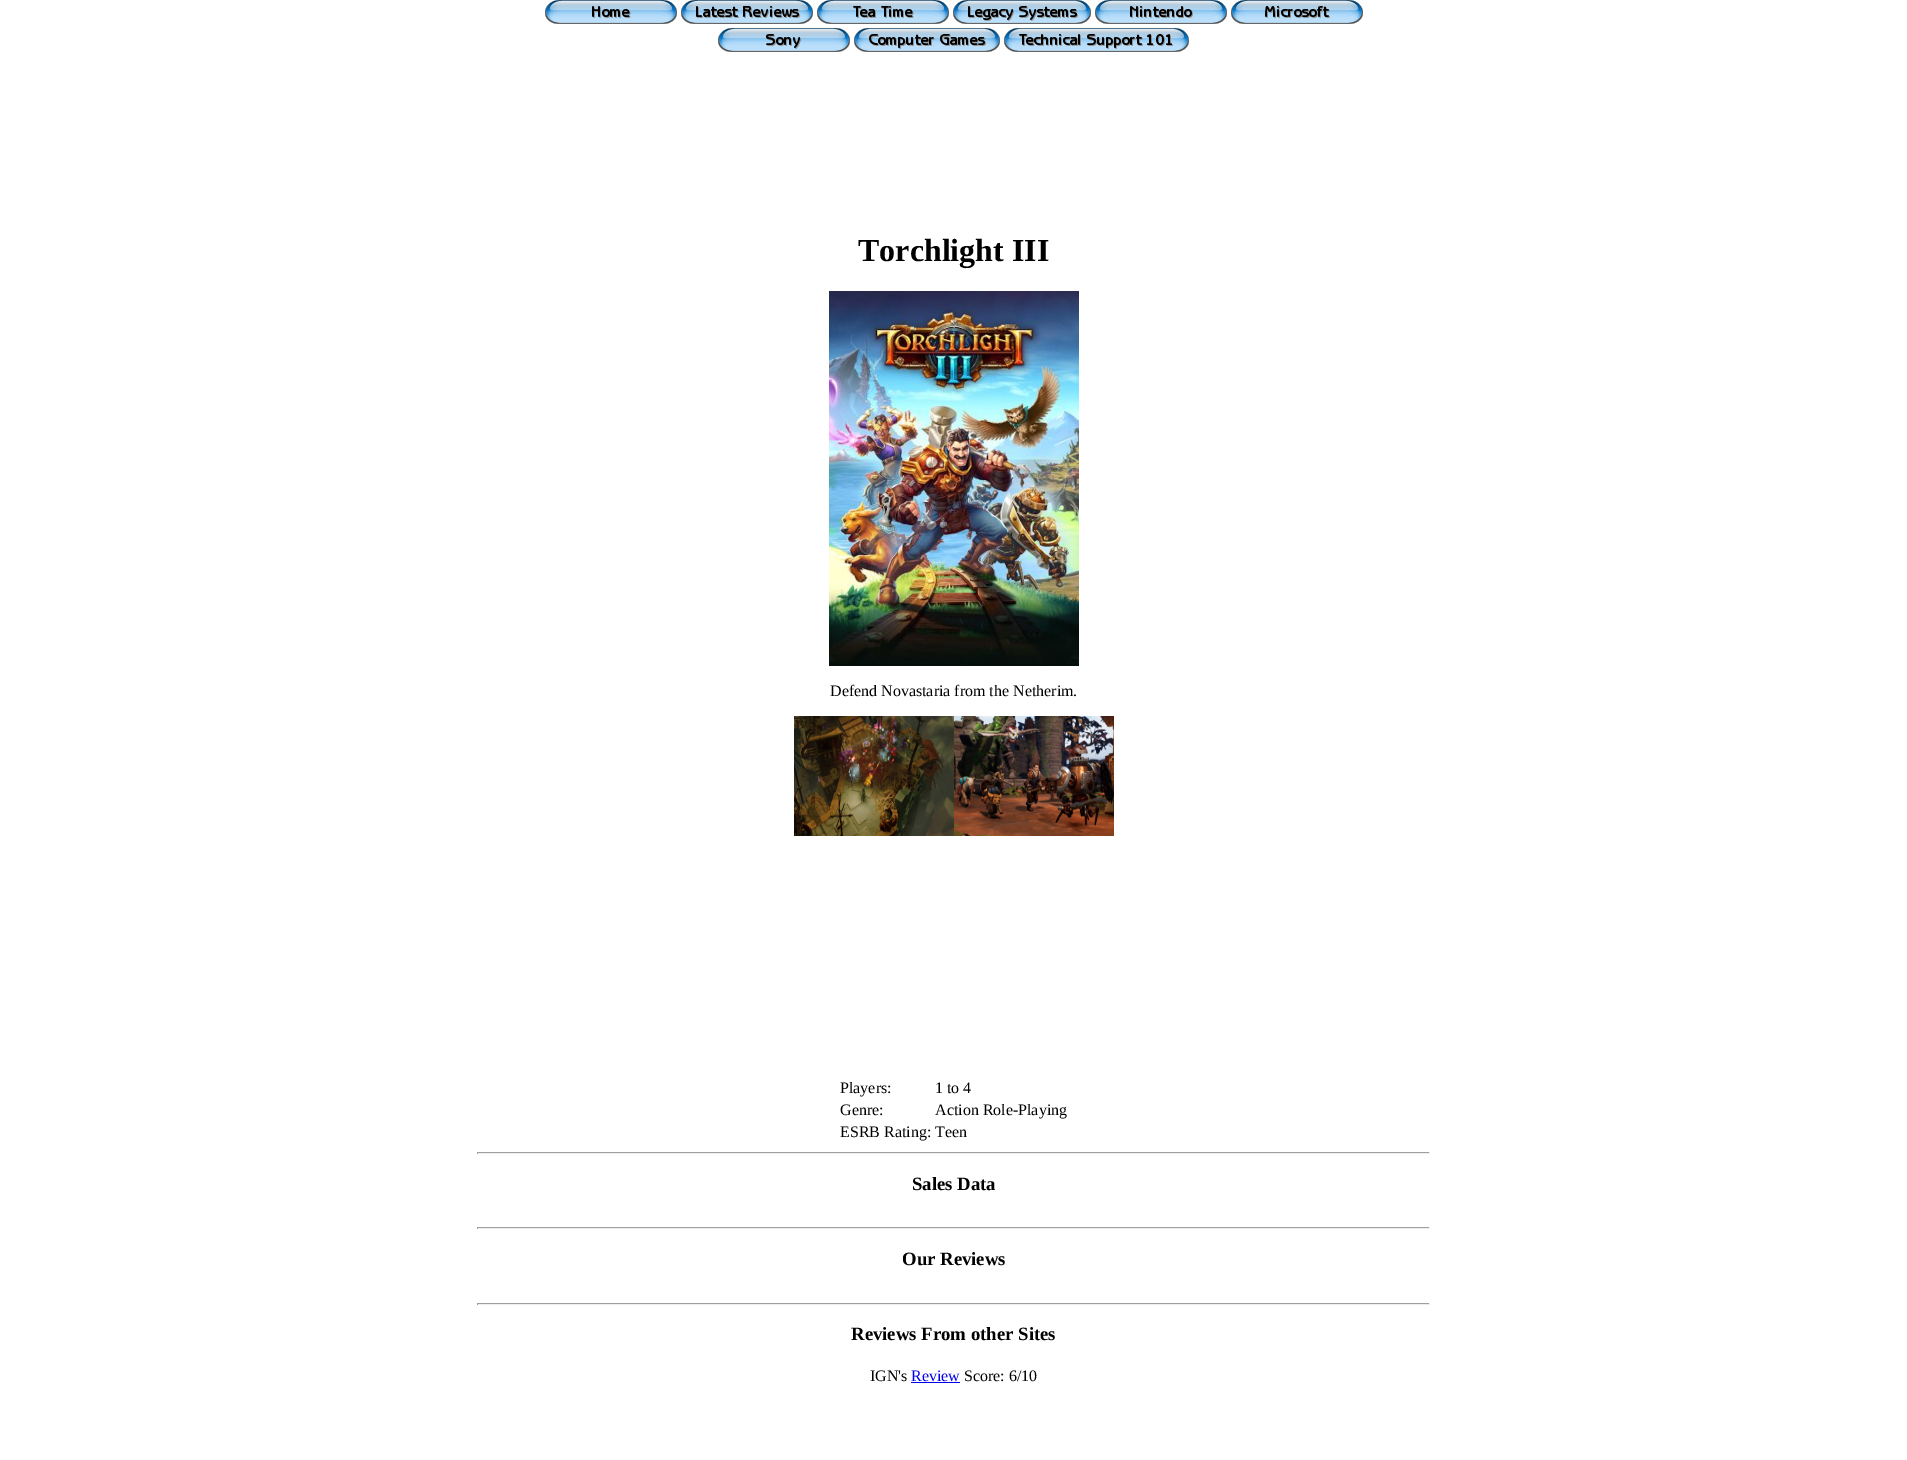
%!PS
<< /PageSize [1907 1460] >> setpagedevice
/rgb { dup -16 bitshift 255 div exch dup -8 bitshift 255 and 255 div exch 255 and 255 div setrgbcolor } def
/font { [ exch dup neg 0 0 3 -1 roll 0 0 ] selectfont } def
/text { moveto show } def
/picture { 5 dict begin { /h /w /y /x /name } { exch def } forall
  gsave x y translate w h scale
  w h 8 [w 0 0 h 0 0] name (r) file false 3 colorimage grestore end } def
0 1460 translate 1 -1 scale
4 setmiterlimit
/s1 { /LiberationSerif-Bold 32 font 16#000000 rgb } def
/s2 { /LiberationSerif-Regular 16 font 16#000000 rgb } def
/s3 { /LiberationSerif-Bold 18.75 font 16#000000 rgb } def
/s4 { /LiberationSerif-Regular 16 font 16#0000EE rgb } def
16#FFFFFF rgb
0 0 1907 1460 rectfill
(pic1.raw) 545 0 132 24 picture
(pic2.raw) 681 0 132 24 picture
(pic3.raw) 817 0 132 24 picture
(pic4.raw) 953 0 138 24 picture
(pic5.raw) 1095 0 132 24 picture
(pic6.raw) 1231 0 132 24 picture
(pic7.raw) 718 28 132 24 picture
(pic8.raw) 854 28 146 24 picture
(pic9.raw) 1004 28 185 24 picture
s1
(Torchlight III) 858 261 text
(pic10.raw) 829 291 250 375 picture
s2
(Defend Novastaria from the Netherim.) 830 696 text
(pic11.raw) 794 716 160 120 picture
(pic12.raw) 954 716 160 120 picture
(Players:) 840 1093 text
(1 to 4) 935 1093 text
(Genre:) 840 1115 text
(Action Role-Playing) 935 1115 text
(ESRB Rating: Teen) 840 1137 text
16#9F9F9F rgb
477 1152 953 1 rectfill
16#EEEEEE rgb
1429 1152 1 2 rectfill
477 1153 953 1 rectfill
16#9F9F9F rgb
477 1152 1 2 rectfill
s3
(Sales Data) 912 1190 text
16#9F9F9F rgb
477 1227 953 1 rectfill
16#EEEEEE rgb
1429 1227 1 2 rectfill
477 1228 953 1 rectfill
16#9F9F9F rgb
477 1227 1 2 rectfill
s3
(Our Reviews) 902 1265 text
16#9F9F9F rgb
477 1303 953 1 rectfill
16#EEEEEE rgb
1429 1303 1 2 rectfill
477 1304 953 1 rectfill
16#9F9F9F rgb
477 1303 1 2 rectfill
s3
(Reviews From other Sites) 851 1340 text
s2
(IGN's) 870 1381 text
s4
(Review) 911 1381 text
911 1382 49 1 rectfill
s2
(Score: 6/10) 964 1381 text
showpage
